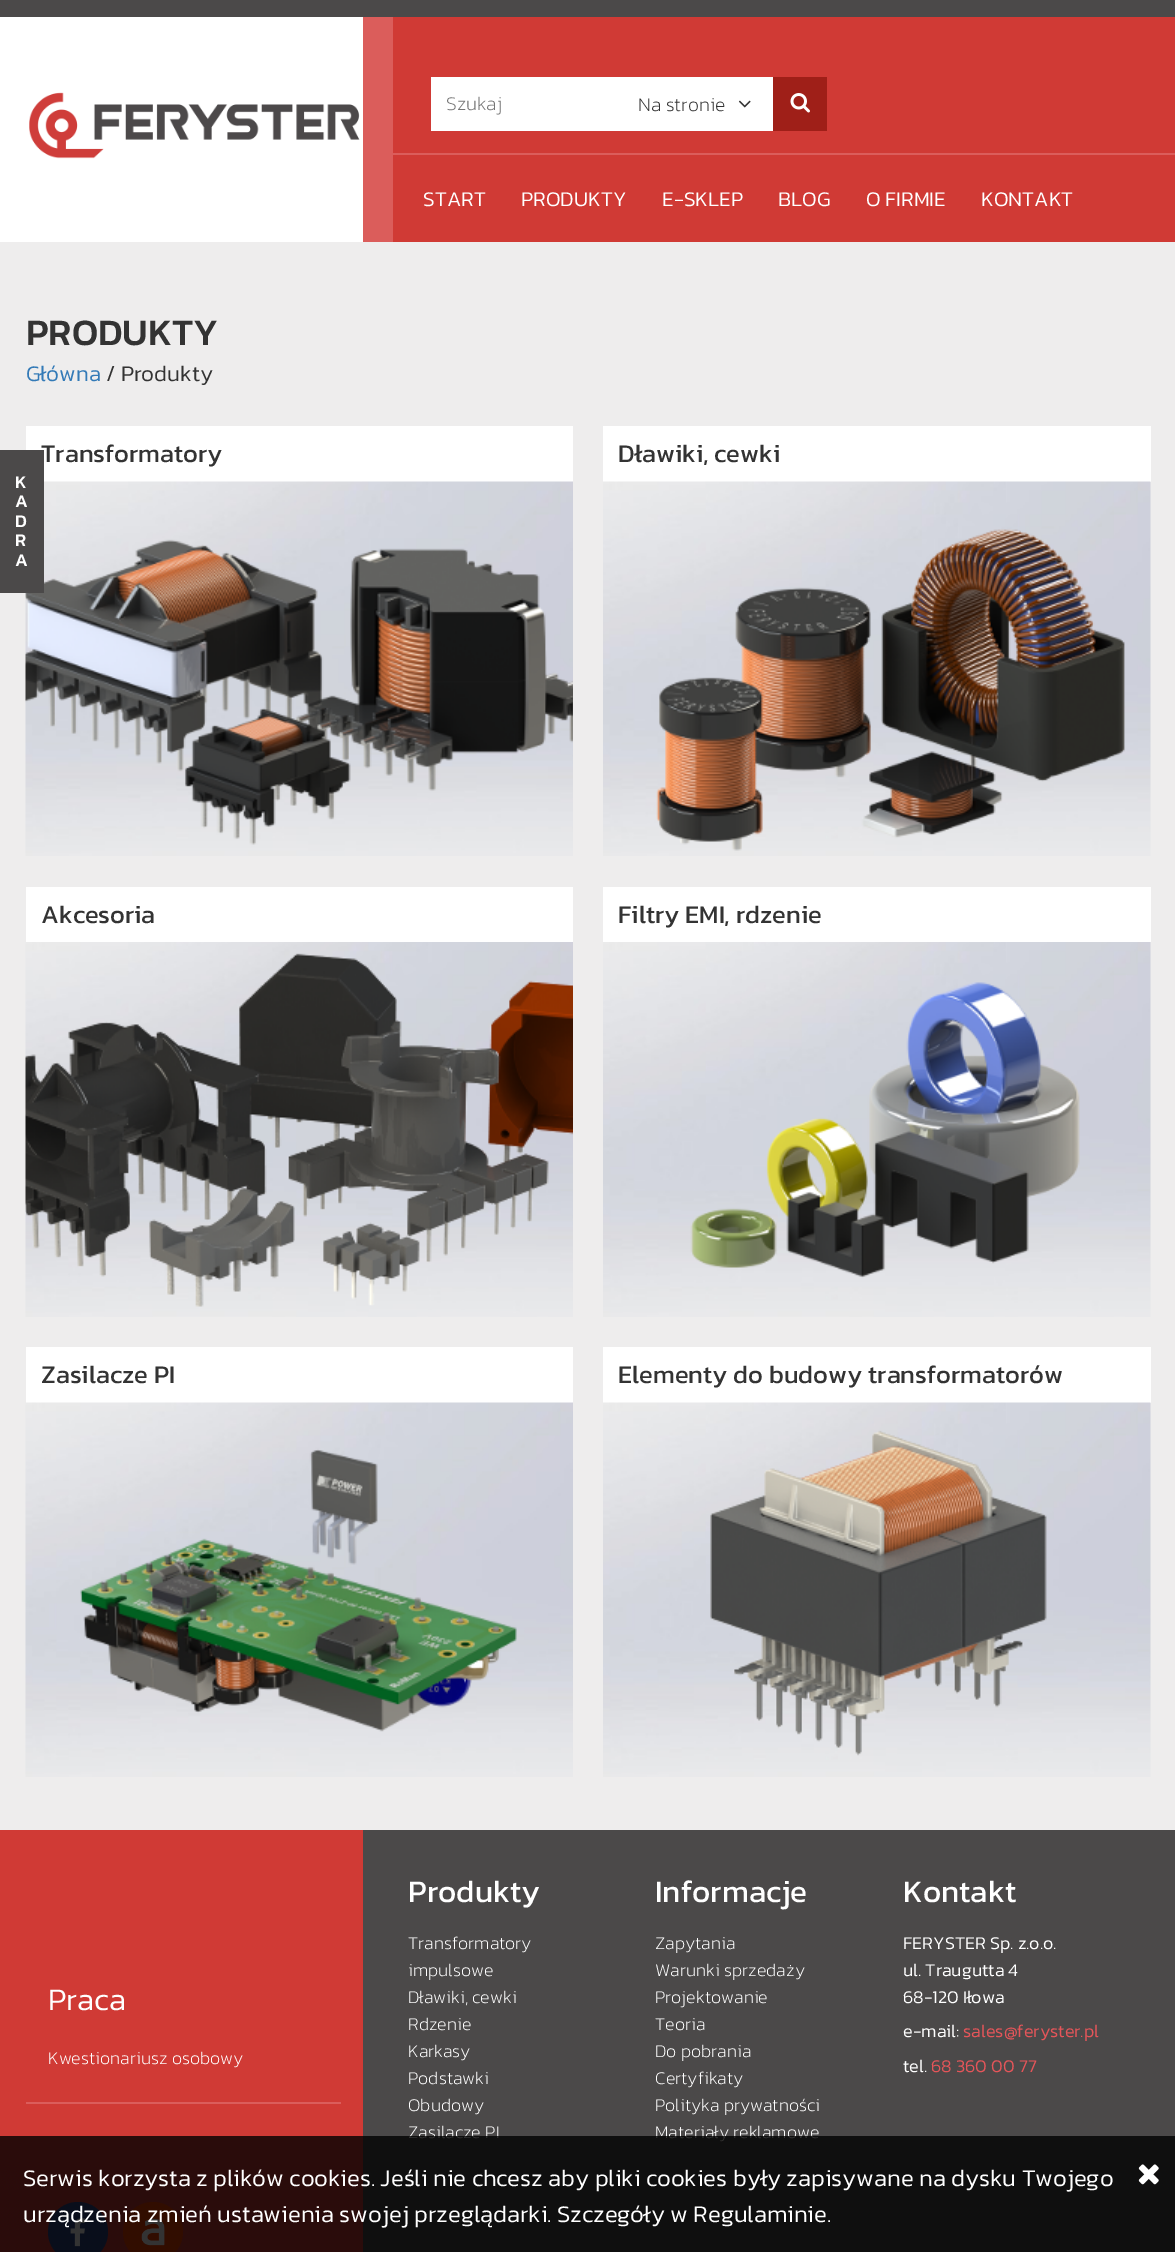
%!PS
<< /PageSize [1175 2252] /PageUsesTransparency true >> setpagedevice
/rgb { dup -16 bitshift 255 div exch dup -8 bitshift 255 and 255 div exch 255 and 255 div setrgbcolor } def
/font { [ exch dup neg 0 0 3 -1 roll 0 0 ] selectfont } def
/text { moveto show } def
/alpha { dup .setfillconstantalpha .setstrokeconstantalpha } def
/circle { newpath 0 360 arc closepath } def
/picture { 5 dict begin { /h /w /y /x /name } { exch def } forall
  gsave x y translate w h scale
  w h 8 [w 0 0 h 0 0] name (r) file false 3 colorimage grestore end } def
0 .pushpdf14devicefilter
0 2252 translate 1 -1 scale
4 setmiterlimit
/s1 { /Kanit-ExtraLight 19.5 font 16#757575 rgb } def
/s2 { /Kanit-ExtraLight 19.5 font 16#333333 rgb } def
/s3 { /Kanit-Light 21 font 16#FFFFFF rgb } def
/s4 { /Kanit-Regular 25.5 font 16#333333 rgb } def
/s5 { /Kanit-Medium 18 font 16#FFFFFF rgb } def
/s6 { /Kanit-Medium 37.5 font 16#333333 rgb } def
/s7 { /Kanit-Light 22.5 font 16#337AB7 rgb } def
/s8 { /Kanit-Light 22.5 font 16#333333 rgb } def
/s9 { /Kanit-Light 31.5 font 16#FFFFFF rgb } def
/s10 { /Kanit-ExtraLight 18 font 16#FFFFFF rgb } def
/s11 { /Kanit-Regular 31.5 font 16#FFFFFF rgb } def
/s12 { /Kanit-Light 18 font 16#FFFFFF rgb } def
/s13 { /Kanit-Light 18 font 16#E55559 rgb } def
/s14 { /Kanit-Light 24 font 16#FFFFFF rgb } def
16#FFFFFF rgb
0 0 1175 2252 rectfill
16#4B4949 rgb
0 0 1175 17 rectfill
(pic1.raw) 29 92 331 67 picture
16#D03A35 rgb
393 17 782 225 rectfill
16#DB5D5B rgb
393 153 782 2 rectfill
363 17 30 225 rectfill
16#FFFFFF rgb
431 77 342 54 rectfill
s1
(Szukaj) 446 110 text
16#9F1F18 rgb
773 77 54 54 rectfill
(pic2.raw) 790 93 20 20 picture
s2
(Na stronie) 638 111 text
(pic3.raw) 738 100 13 8 picture
s3
(START) 423 206 text
(PRODUKTY) 521 206 text
(E-SKLEP) 662 206 text
(BLOG) 778 206 text
(O FIRMIE) 866 206 text
(KONTAKT) 981 206 text
16#EEEDED rgb
0 242 1175 1588 rectfill
16#FFFFFF rgb
26 426 547 56 rectfill
s4
(Transformatory) 41 462 text
(pic4.raw) 25 481 548 375 picture
16#4B4949 rgb
0 450 44 143 rectfill
s5
(K) 15 488 text
(A) 15 507 text
(D) 15 527 text
(R) 15 546 text
(A) 15 566 text
s6
(PRODUKTY) 26 345 text
s7
(Główna) 26 381 text
s8
(/ Produkty) 106 381 text
16#FFFFFF rgb
603 426 548 56 rectfill
s4
(Dławiki, cewki) 618 462 text
(pic5.raw) 603 481 548 375 picture
16#FFFFFF rgb
26 887 547 55 rectfill
s4
(Akcesoria) 41 923 text
(pic6.raw) 25 942 548 375 picture
16#FFFFFF rgb
603 887 548 55 rectfill
s4
(Filtry EMI, rdzenie) 618 923 text
(pic7.raw) 603 942 548 375 picture
16#FFFFFF rgb
26 1347 547 56 rectfill
s4
(Zasilacze PI) 41 1383 text
(pic8.raw) 25 1402 548 375 picture
16#FFFFFF rgb
603 1347 548 56 rectfill
s4
(Elementy do budowy transformatorów) 618 1383 text
(pic9.raw) 603 1402 548 375 picture
16#D03A35 rgb
0 1830 363 422 rectfill
16#4B4949 rgb
363 1830 812 422 rectfill
16#DB5D5B rgb
26 2102 315 2 rectfill
s9
(Praca) 48 2010 text
s10
(Kwestionariusz osobowy) 48 2064 text
16#2E4688 rgb
78 2232 30 circle fill
(pic10.raw) 70 2218 16 29 picture
16#F74000 rgb
153 2232 30 circle fill
(pic11.raw) 141 2218 24 28 picture
s11
(Produkty) 408 1902 text
s10
(Transformatory) 408 1949 text
(impulsowe) 408 1976 text
(Dławiki, cewki) 408 2003 text
(Rdzenie) 408 2030 text
(Karkasy) 408 2057 text
(Podstawki) 408 2084 text
(Obudowy) 408 2111 text
(Zasilacze PI) 408 2138 text
s11
(Informacje) 655 1902 text
s10
(Zapytania) 655 1949 text
(Warunki sprzedaży) 655 1976 text
(Projektowanie) 655 2003 text
(Teoria) 655 2030 text
(Do pobrania) 655 2057 text
(Certyfikaty) 655 2084 text
(Polityka prywatności) 655 2111 text
(Materiały reklamowe) 655 2138 text
s11
(Kontakt) 903 1902 text
s12
(FERYSTER Sp. z.o.o.) 903 1949 text
(ul. Traugutta 4) 903 1976 text
(68-120 Iłowa) 903 2003 text
(e-mail:) 903 2037 text
s13
(sales@feryster.pl) 963 2037 text
s12
(tel.) 903 2072 text
s13
(68 360 00 77) 931 2072 text
0.8 alpha
16#000000 rgb
0 2136 1175 116 rectfill
1 alpha
s14
(Serwis korzysta z plików cookies. Jeśli nie chcesz aby pliki cookies były zapisywane na dysku Twojego) 23 2186 text
(pic12.raw) 1138 2164 21 21 picture
(urządzenia zmień ustawienia swojej przeglądarki. Szczegóły w Regulaminie.) 23 2222 text
.poppdf14devicefilter showpage
